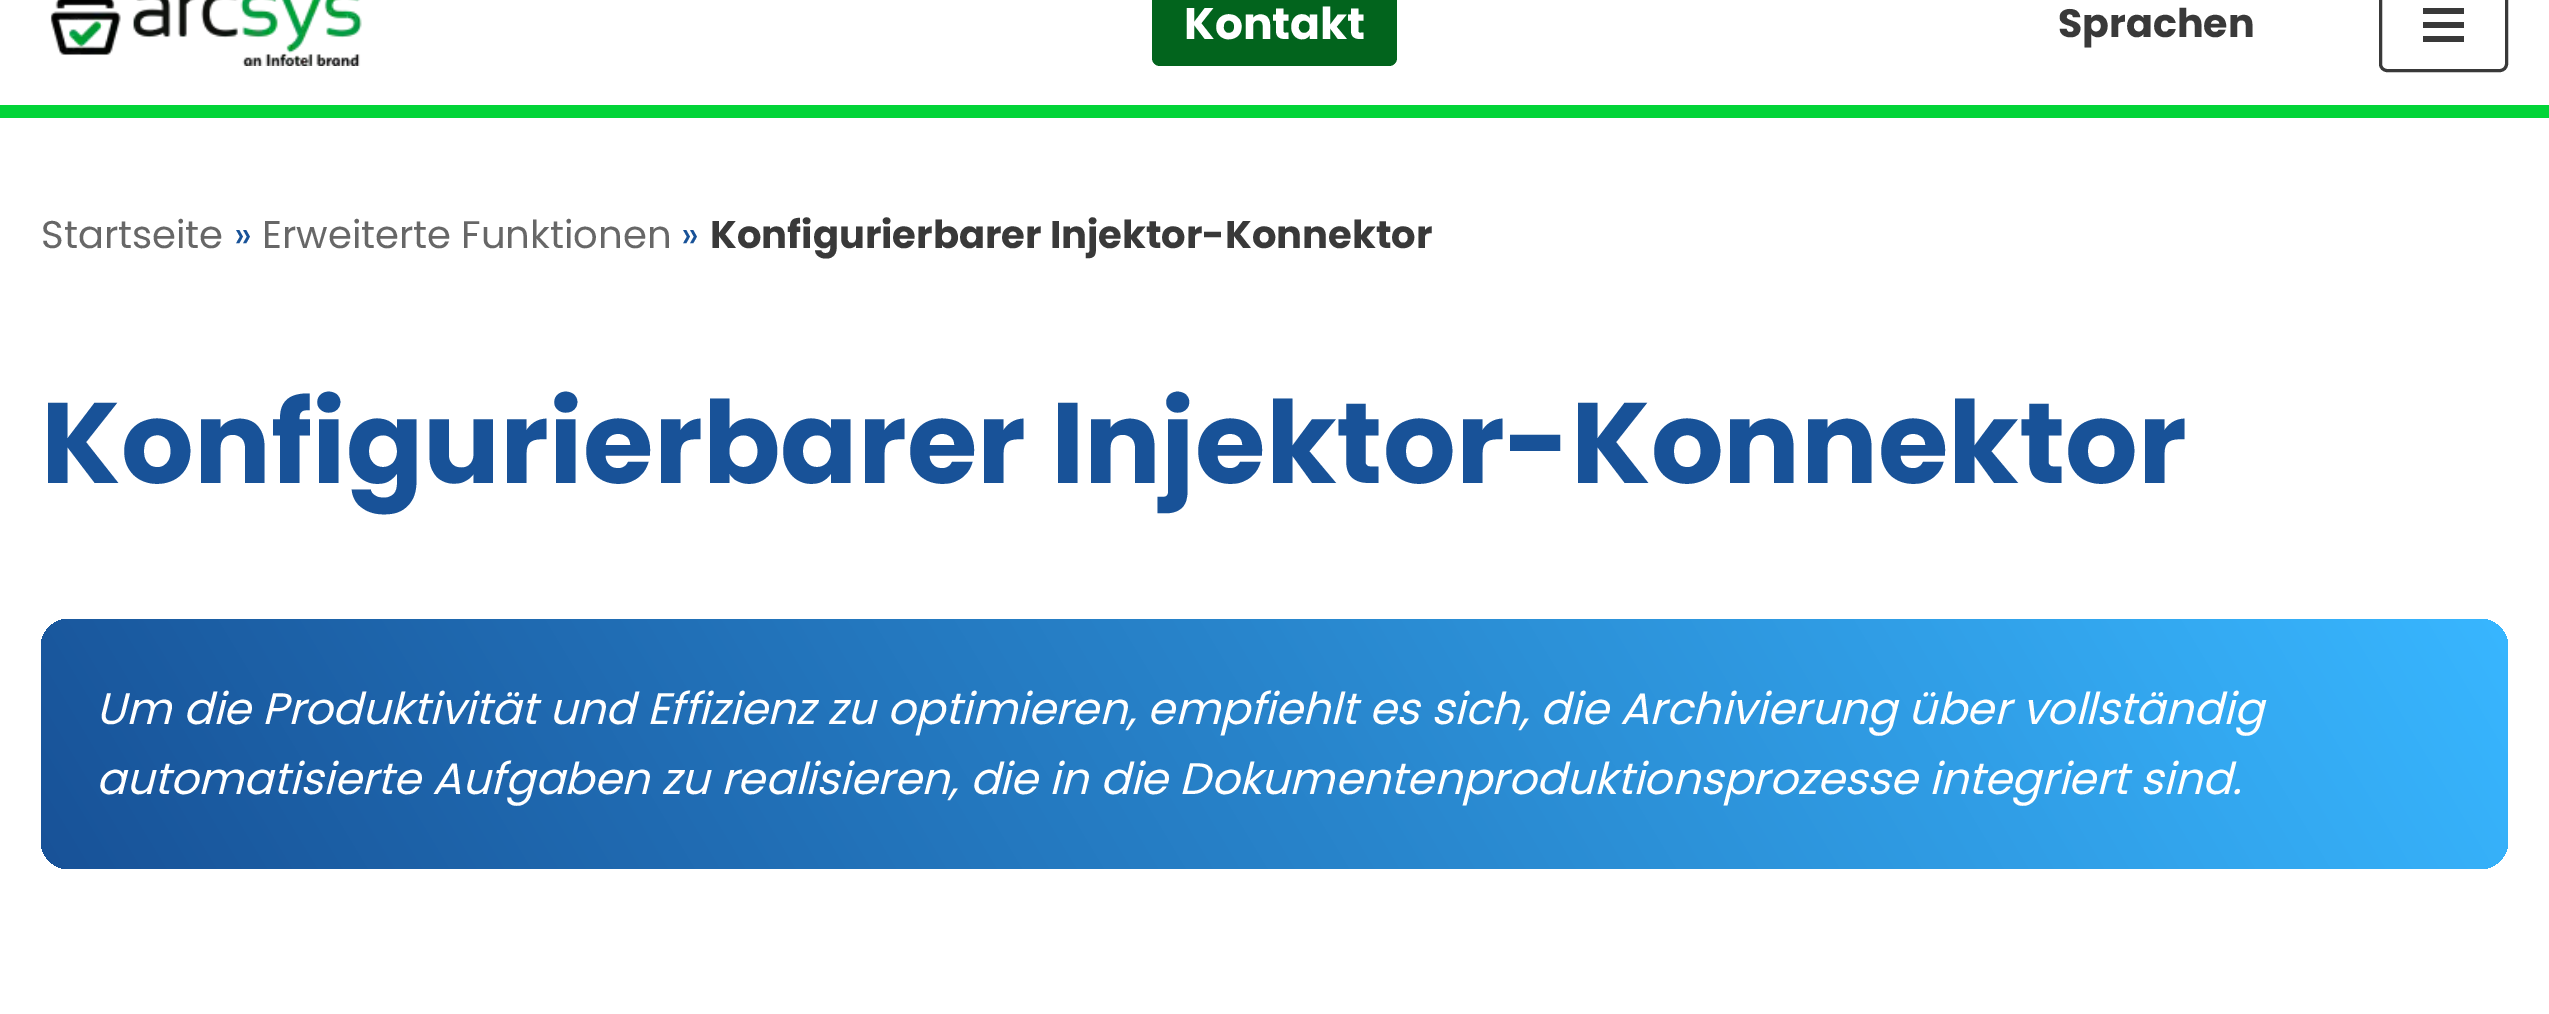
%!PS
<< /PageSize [2549 1014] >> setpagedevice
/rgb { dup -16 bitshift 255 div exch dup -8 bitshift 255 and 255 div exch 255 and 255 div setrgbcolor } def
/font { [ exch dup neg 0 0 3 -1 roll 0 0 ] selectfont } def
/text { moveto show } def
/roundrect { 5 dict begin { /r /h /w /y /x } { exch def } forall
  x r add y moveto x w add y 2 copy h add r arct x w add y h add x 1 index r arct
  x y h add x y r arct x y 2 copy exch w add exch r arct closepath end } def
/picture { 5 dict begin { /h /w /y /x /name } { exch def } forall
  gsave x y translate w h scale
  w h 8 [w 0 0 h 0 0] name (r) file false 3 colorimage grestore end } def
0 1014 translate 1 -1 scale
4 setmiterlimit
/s1 { /Poppins-Bold 44 font 16#FFFFFF rgb } def
/s2 { /Poppins-Bold 39.5 font 16#393939 rgb } def
/s3 { /Poppins-Regular 38.5 font 16#676767 rgb } def
/s4 { /Poppins-Regular 38.5 font 16#185298 rgb } def
/s5 { /Poppins-Bold 38.5 font 16#393939 rgb } def
/s6 { /Poppins-Bold 114.4 font 16#185298 rgb } def
/s7 { /Poppins-Italic 44 font 16#FFFFFF rgb } def
16#FFFFFF rgb
0 0 2549 1014 rectfill
16#02D438 rgb
0 105 2549 13 rectfill
(pic1.raw) 50 0 312 66 picture
16#02641D rgb
1152 -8 245 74 8 roundrect fill
s1
(Kontakt) 1184 39 text
s2
(Sprachen) 2058 37 text
3 setlinewidth
2380.5 -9.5 126 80 6.5 roundrect stroke
2423 8 41 6 rectfill
2423 22 41 6 rectfill
2423 36 41 6 rectfill
s3
(Startseite) 41 248 text
s4
(») 234 248 text
s3
(Erweiterte Funktionen) 262 248 text
s4
(») 681 248 text
s5
(Konfigurierbarer Injektor-Konnektor) 710 248 text
s6
(Konfigurierbarer Injektor-Konnektor) 41 483 text
gsave 41 619 2467 250 28 roundrect clip newpath
<< /ShadingType 2 /ColorSpace /DeviceRGB /Coords [313 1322 2236 166] /Extend [true true] /Function << /FunctionType 2 /Domain [0 1] /C0 [0.094 0.322 0.596] /C1 [0.22 0.714 1] /N 1 >> >> shfill grestore
s7
(Um die Produktivität und Effizienz zu optimieren, empfiehlt es sich, die Archivierung über vollständig) 96 724 text
(automatisierte Aufgaben zu realisieren, die in die Dokumentenproduktionsprozesse integriert sind.) 96 794 text
showpage
